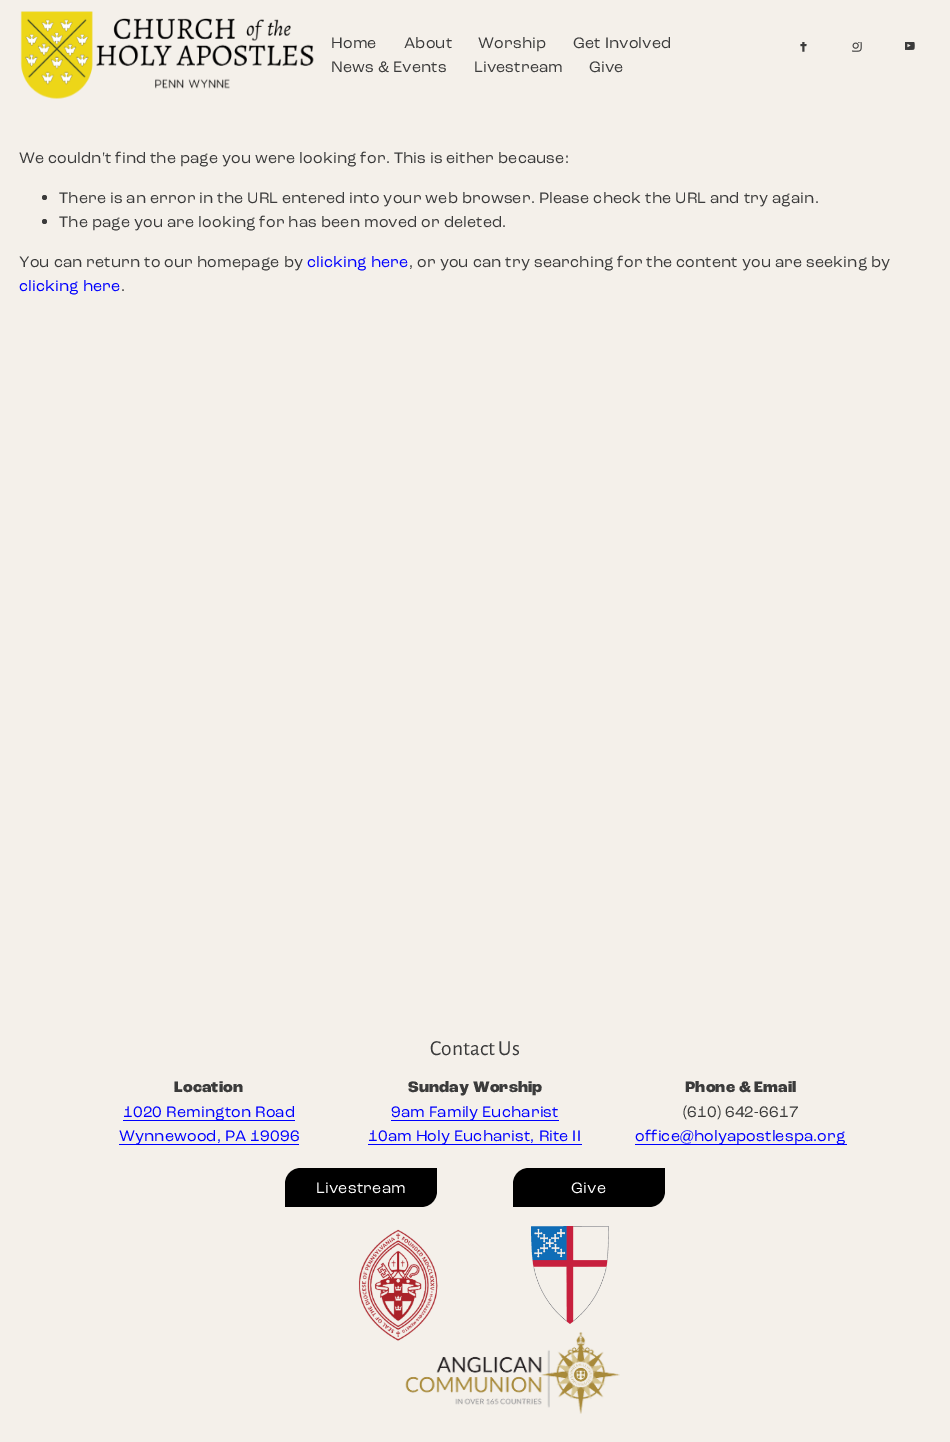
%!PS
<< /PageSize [950 1442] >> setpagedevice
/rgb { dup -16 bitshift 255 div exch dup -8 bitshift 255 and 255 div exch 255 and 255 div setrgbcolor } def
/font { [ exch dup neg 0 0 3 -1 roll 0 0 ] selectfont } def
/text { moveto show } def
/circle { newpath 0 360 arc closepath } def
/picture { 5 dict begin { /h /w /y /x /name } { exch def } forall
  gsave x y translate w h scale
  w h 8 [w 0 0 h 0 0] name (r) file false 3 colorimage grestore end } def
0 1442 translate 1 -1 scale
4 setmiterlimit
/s1 { /AlegreyaSans-Regular 21.5 font 16#3B3B3B rgb } def
16#F4F0EA rgb
0 0 950 1442 rectfill
(pic1.raw) 20 11 294 88 picture
/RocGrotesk-Regular 16 font
16#3B3B3B rgb
331 48 moveto 0.15 0 (Home) ashow
404 48 moveto 0.15 0 (About) ashow
478 48 moveto 0.15 0 (Worship) ashow
573 48 moveto 0.15 0 (Get Involved) ashow
331 72 moveto 0.15 0 (News & Events) ashow
474 72 moveto 0.15 0 (Livestream) ashow
589 72 moveto 0.15 0 (Give) ashow
(pic2.raw) 800 42 7 10 picture
(pic3.raw) 852 42 10 10 picture
(pic4.raw) 905 42 10 8 picture
19 163 moveto 0.15 0 (We couldn't find the page you were looking for. This is either because:) ashow
44.5 197.5 2.5 circle fill
59 203 moveto 0.15 0 (There is an error in the URL entered into your web browser. Please check the URL and try again.) ashow
44.5 221.5 2.5 circle fill
59 227 moveto 0.15 0 (The page you are looking for has been moved or deleted.) ashow
19 267 moveto 0.15 0 (You can return to our homepage by) ashow
16#0000FF rgb
307 267 moveto 0.15 0 (clicking here) ashow
16#3B3B3B rgb
409 267 moveto 0.15 0 (, or you can try searching for the content you are seeking by) ashow
16#0000FF rgb
19 291 moveto 0.15 0 (clicking here) ashow
16#3B3B3B rgb
121 291 moveto 0.15 0 (.) ashow
s1
(Contact Us) 430 1055 text
/RocGrotesk-ExtraBold 16 font
174 1092 moveto 0.15 0 (Location) ashow
16#0000FF rgb
123 1120 172 1 rectfill
/RocGrotesk-Regular 16 font
123 1117 moveto 0.15 0 (1020 Remington Road) ashow
119 1144 180 1 rectfill
119 1141 moveto 0.15 0 (Wynnewood, PA 19096) ashow
/RocGrotesk-ExtraBold 16 font
16#3B3B3B rgb
408 1092 moveto 0.15 0 (Sunday Worship) ashow
16#0000FF rgb
391 1120 168 1 rectfill
/RocGrotesk-Regular 16 font
391 1117 moveto 0.15 0 (9am Family Eucharist) ashow
368 1144 214 1 rectfill
368 1141 moveto 0.15 0 (10am Holy Eucharist, Rite II) ashow
/RocGrotesk-ExtraBold 16 font
16#3B3B3B rgb
685 1092 moveto 0.15 0 (Phone & Email) ashow
/RocGrotesk-Regular 16 font
683 1117 moveto 0.15 0 (\(610\) 642-6617) ashow
16#0000FF rgb
635 1144 212 1 rectfill
635 1141 moveto 0.15 0 (office@holyapostlespa.org) ashow
16#000000 rgb
301 1168 moveto 437 1168 lineto 437 1191 lineto 437 1200 430 1207 421 1207 curveto 285 1207 lineto 285 1184 lineto 285 1175 292 1168 301 1168 curveto closepath fill
16#FFFFFF rgb
316 1193 moveto 0.25 0 (Livestream) ashow
16#000000 rgb
529 1168 moveto 665 1168 lineto 665 1191 lineto 665 1200 658 1207 649 1207 curveto 513 1207 lineto 513 1184 lineto 513 1175 520 1168 529 1168 curveto closepath fill
16#FFFFFF rgb
571 1193 moveto 0.25 0 (Give) ashow
(pic5.raw) 358 1229 80 112 picture
(pic6.raw) 531 1226 78 98 picture
(pic7.raw) 405 1332 215 82 picture
showpage
